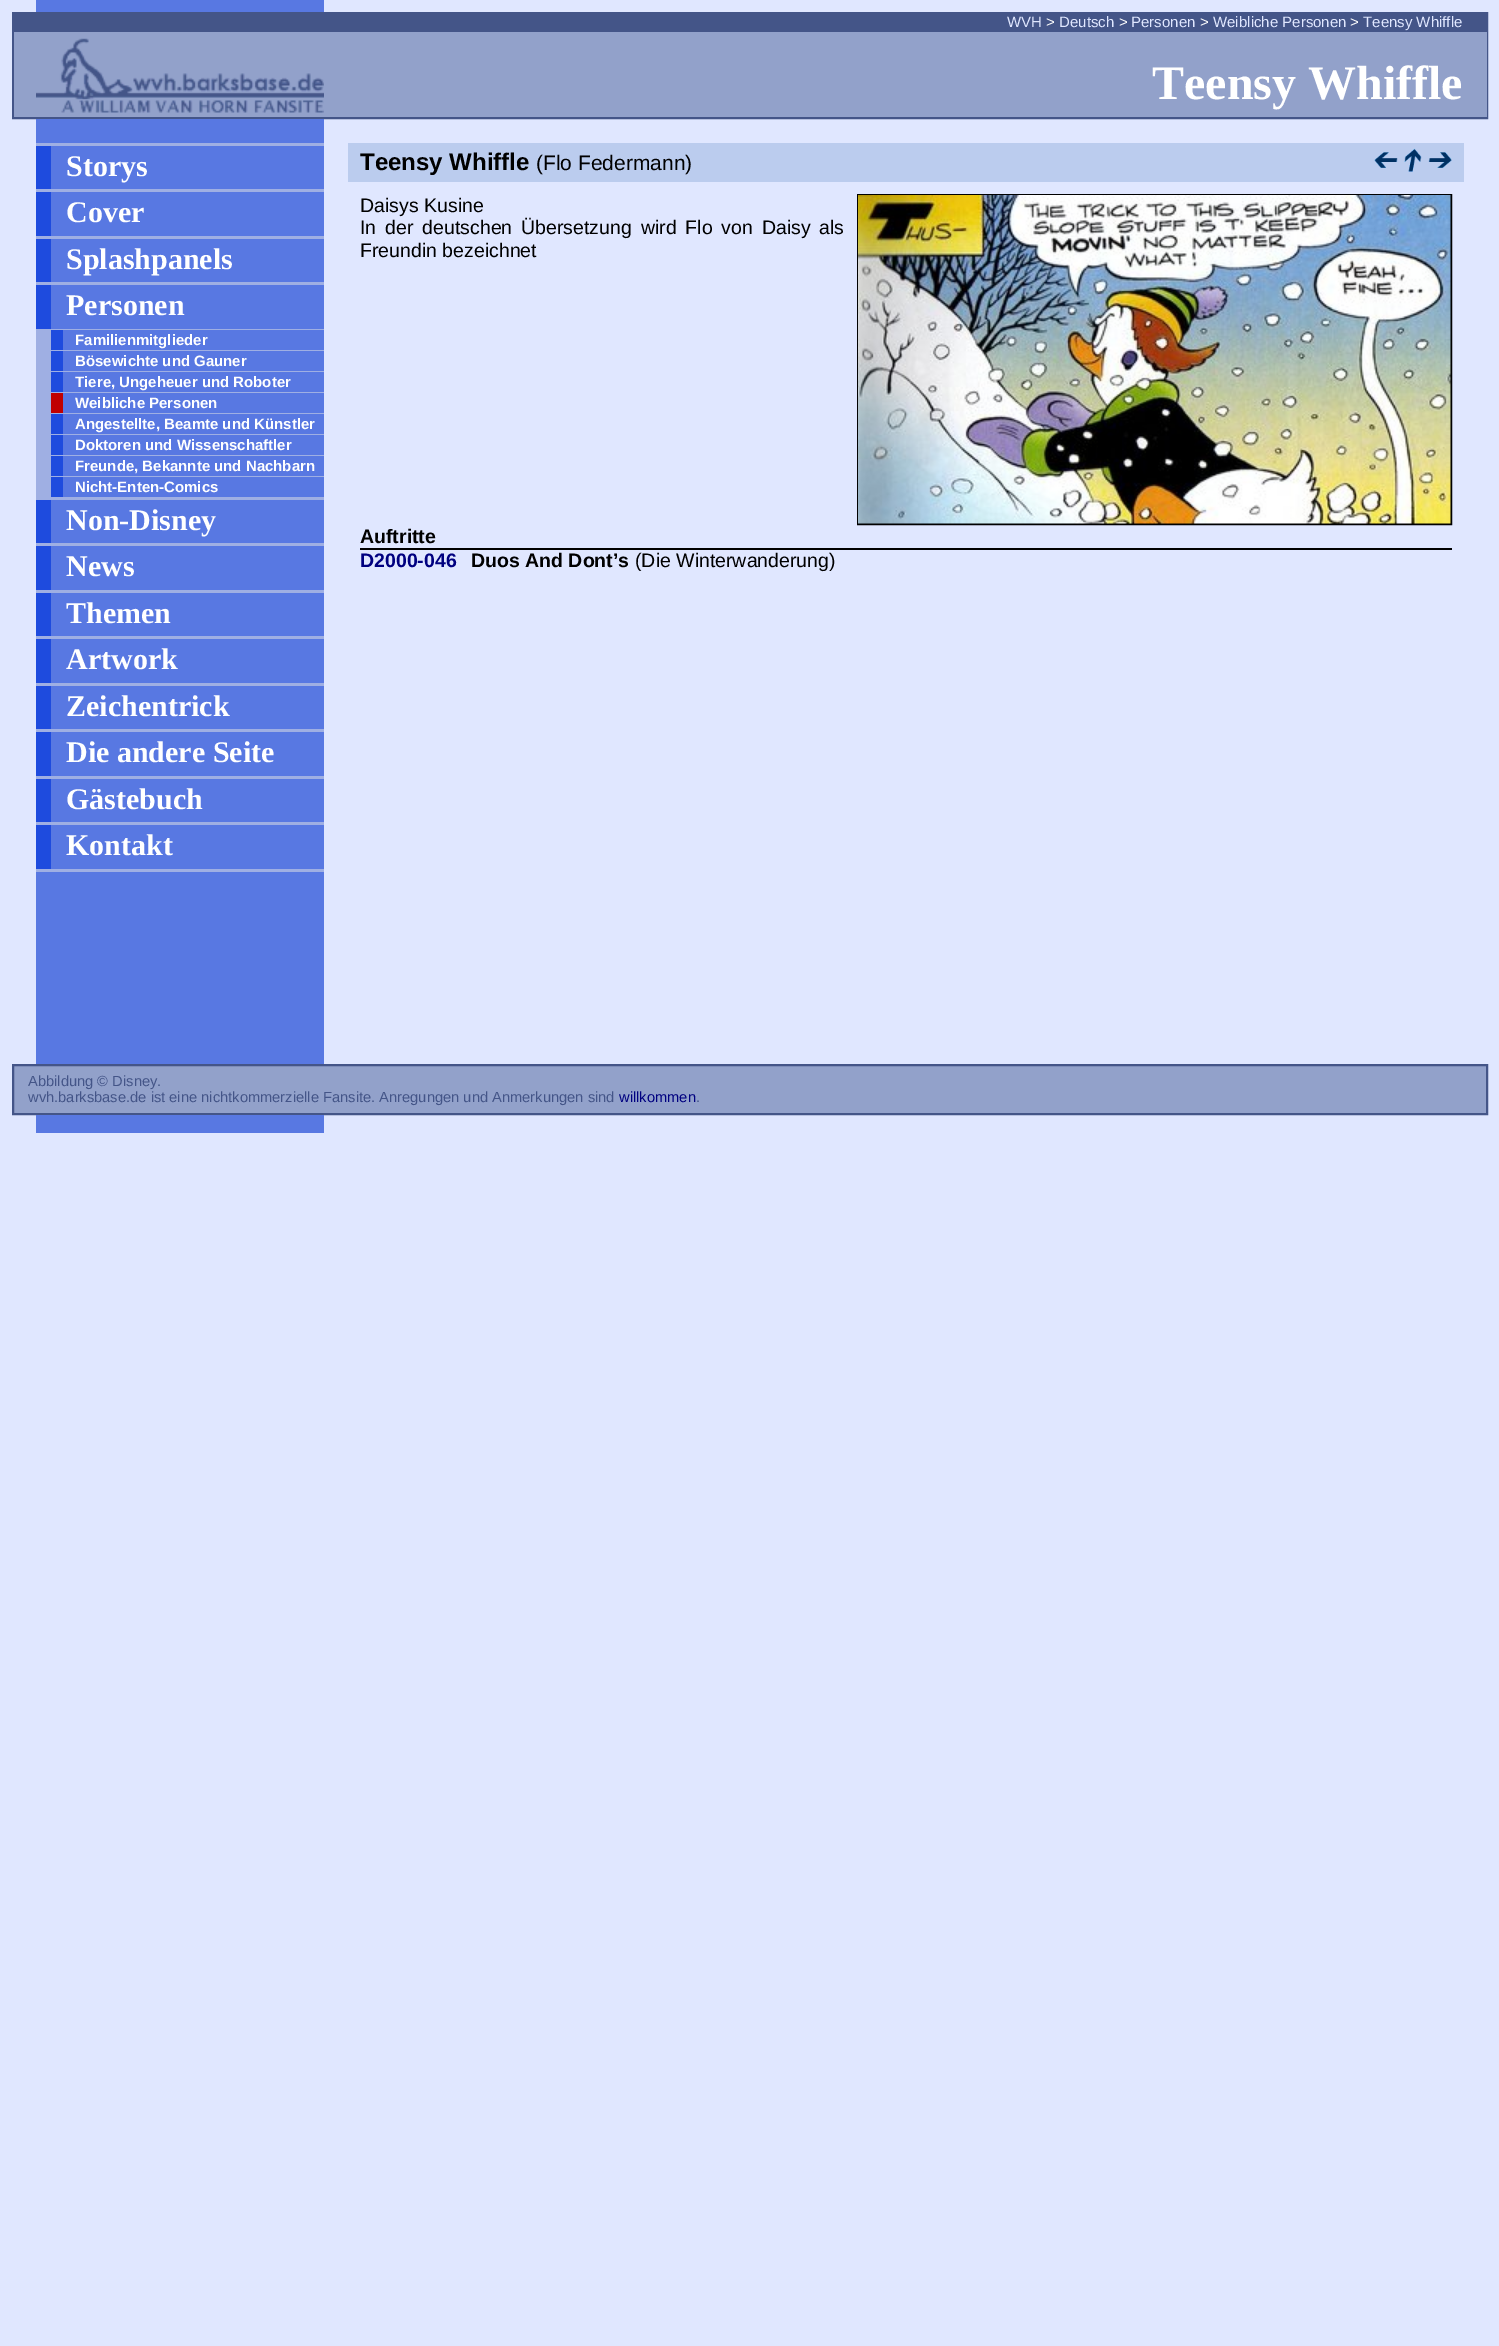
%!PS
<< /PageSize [1499 2346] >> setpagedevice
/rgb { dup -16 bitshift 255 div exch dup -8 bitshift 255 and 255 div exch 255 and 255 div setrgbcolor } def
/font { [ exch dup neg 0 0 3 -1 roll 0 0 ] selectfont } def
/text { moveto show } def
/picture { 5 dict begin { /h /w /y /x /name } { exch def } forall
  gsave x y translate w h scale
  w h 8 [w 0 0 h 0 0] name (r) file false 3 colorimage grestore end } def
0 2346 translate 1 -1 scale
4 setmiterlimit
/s1 { /LiberationSans-Regular 15 font 16#E0E7FF rgb } def
/s2 { /LiberationSans-Regular 15 font 16#FFFFFF rgb } def
/s3 { /LiberationSerif-Bold 48 font 16#FFFFFF rgb } def
/s4 { /LiberationSerif-Bold 30 font 16#FFFFFF rgb } def
/s5 { /LiberationSans-Bold 15 font 16#FFFFFF rgb } def
/s6 { /LiberationSans-Bold 24 font 16#000000 rgb } def
/s7 { /LiberationSans-Regular 21 font 16#000000 rgb } def
/s8 { /LiberationSans-Regular 19.5 font 16#000000 rgb } def
/s9 { /LiberationSans-Bold 19.5 font 16#000000 rgb } def
/s10 { /LiberationSans-Bold 19.5 font 16#000080 rgb } def
/s11 { /LiberationSans-Regular 14.7 font 16#445588 rgb } def
/s12 { /LiberationSans-Regular 14.7 font 16#000080 rgb } def
16#E0E7FF rgb
0 0 1499 2346 rectfill
16#5878E2 rgb
36 0 288 12 rectfill
16#445588 rgb
2 setlinewidth
13 13 1474 105 rectstroke
14 14 1472 18 rectfill
s1
(WVH) 1007 27 text
s2
(>) 1046 27 text
s1
(Deutsch) 1059 27 text
s2
(>) 1119 27 text
s1
(Personen) 1131 27 text
s2
(>) 1200 27 text
s1
(Weibliche Personen) 1213 27 text
s2
(>) 1350 27 text
s1
(Teensy Whiffle) 1363 27 text
16#92A1CA rgb
14 32 1473 85 rectfill
(pic1.raw) 36 38 288 75 picture
s3
(Teensy Whiffle) 1152 99 text
16#5878E2 rgb
36 119 288 945 rectfill
16#9FAFE3 rgb
36 143 288 729 rectfill
16#5878E2 rgb
51 146 273 43 rectfill
16#1E4BDE rgb
36 146 15 43 rectfill
s4
(Storys) 66 176 text
16#5878E2 rgb
51 192 273 44 rectfill
16#1E4BDE rgb
36 192 15 44 rectfill
s4
(Cover) 66 222 text
16#5878E2 rgb
51 239 273 43 rectfill
16#1E4BDE rgb
36 239 15 43 rectfill
s4
(Splashpanels) 66 269 text
16#5878E2 rgb
51 285 273 44 rectfill
16#1E4BDE rgb
36 285 15 44 rectfill
s4
(Personen) 66 315 text
16#5878E2 rgb
63 330 261 20 rectfill
16#1E4BDE rgb
51 330 12 20 rectfill
s5
(Familienmitglieder) 75 345 text
16#5878E2 rgb
63 351 261 20 rectfill
16#1E4BDE rgb
51 351 12 20 rectfill
s5
(Bösewichte und Gauner) 75 366 text
16#5878E2 rgb
63 372 261 20 rectfill
16#1E4BDE rgb
51 372 12 20 rectfill
s5
(Tiere, Ungeheuer und Roboter) 75 387 text
16#5878E2 rgb
63 393 261 20 rectfill
16#C00000 rgb
51 393 12 20 rectfill
s5
(Weibliche Personen) 75 408 text
16#5878E2 rgb
63 414 261 20 rectfill
16#1E4BDE rgb
51 414 12 20 rectfill
s5
(Angestellte, Beamte und Künstler) 75 429 text
16#5878E2 rgb
63 435 261 20 rectfill
16#1E4BDE rgb
51 435 12 20 rectfill
s5
(Doktoren und Wissenschaftler) 75 450 text
16#5878E2 rgb
63 456 261 20 rectfill
16#1E4BDE rgb
51 456 12 20 rectfill
s5
(Freunde, Bekannte und Nachbarn) 75 471 text
16#5878E2 rgb
63 477 261 20 rectfill
16#1E4BDE rgb
51 477 12 20 rectfill
s5
(Nicht-Enten-Comics) 75 492 text
16#5878E2 rgb
51 500 273 43 rectfill
16#1E4BDE rgb
36 500 15 43 rectfill
s4
(Non-Disney) 66 530 text
16#5878E2 rgb
51 546 273 44 rectfill
16#1E4BDE rgb
36 546 15 44 rectfill
s4
(News) 66 576 text
16#5878E2 rgb
51 593 273 43 rectfill
16#1E4BDE rgb
36 593 15 43 rectfill
s4
(Themen) 66 623 text
16#5878E2 rgb
51 639 273 44 rectfill
16#1E4BDE rgb
36 639 15 44 rectfill
s4
(Artwork) 66 669 text
16#5878E2 rgb
51 686 273 43 rectfill
16#1E4BDE rgb
36 686 15 43 rectfill
s4
(Zeichentrick) 66 716 text
16#5878E2 rgb
51 732 273 44 rectfill
16#1E4BDE rgb
36 732 15 44 rectfill
s4
(Die andere Seite) 66 762 text
16#5878E2 rgb
51 779 273 43 rectfill
16#1E4BDE rgb
36 779 15 43 rectfill
s4
(Gästebuch) 66 809 text
16#5878E2 rgb
51 825 273 44 rectfill
16#1E4BDE rgb
36 825 15 44 rectfill
s4
(Kontakt) 66 855 text
16#BBCCEE rgb
348 143 1116 39 rectfill
s6
(Teensy Whiffle) 360 170 text
s7
(\(Flo Federmann\)) 536 170 text
(pic2.raw) 1374 152 24 16 picture
(pic3.raw) 1404 148 18 24 picture
(pic4.raw) 1428 152 24 16 picture
s8
(Daisys Kusine) 360 212 text
858 195 593 329 rectstroke
(pic5.raw) 858 195 593 329 picture
360 234 moveto 3.5 0 32 (In der deutschen Übersetzung wird Flo von Daisy als) widthshow
(Freundin bezeichnet) 360 257 text
360 548 1092 2 rectfill
s9
(Auftritte) 360 543 text
s10
(D2000-046) 360 567 text
s9
(Duos And Dont’s) 471 567 text
s8
(\(Die Winterwanderung\)) 635 567 text
16#92A1CA rgb
13 1065 moveto 1487 1065 lineto 1487 1114 lineto 13 1114 lineto closepath gsave fill grestore
16#445588 rgb
stroke
s11
(Abbildung © Disney.) 28 1086 text
(wvh.barksbase.de ist eine nichtkommerzielle Fansite. Anregungen und Anmerkungen sind) 28 1102 text
s12
(willkommen) 619 1102 text
s11
(.) 696 1102 text
16#5878E2 rgb
36 1115 288 18 rectfill
showpage
